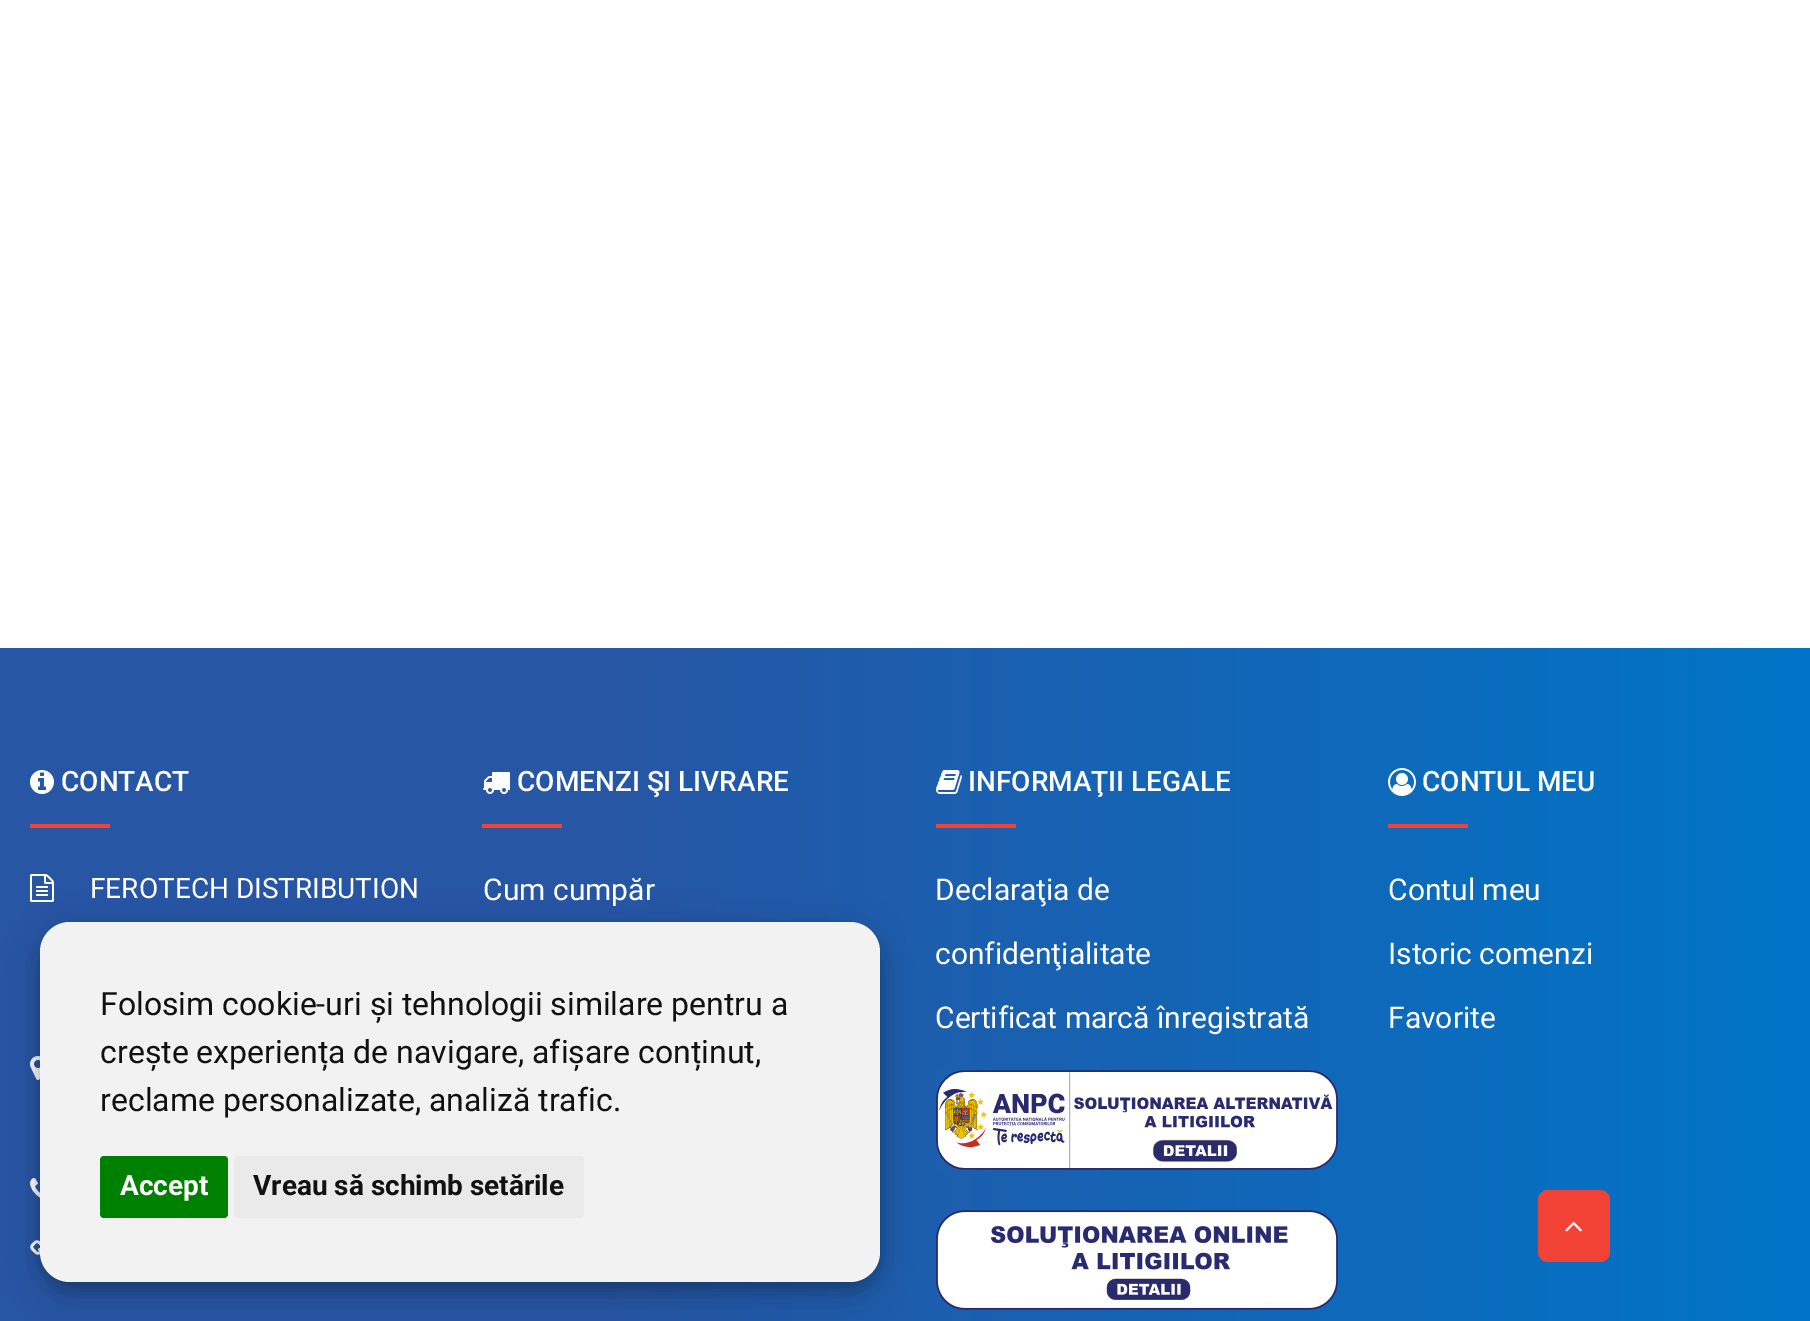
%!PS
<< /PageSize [1810 1321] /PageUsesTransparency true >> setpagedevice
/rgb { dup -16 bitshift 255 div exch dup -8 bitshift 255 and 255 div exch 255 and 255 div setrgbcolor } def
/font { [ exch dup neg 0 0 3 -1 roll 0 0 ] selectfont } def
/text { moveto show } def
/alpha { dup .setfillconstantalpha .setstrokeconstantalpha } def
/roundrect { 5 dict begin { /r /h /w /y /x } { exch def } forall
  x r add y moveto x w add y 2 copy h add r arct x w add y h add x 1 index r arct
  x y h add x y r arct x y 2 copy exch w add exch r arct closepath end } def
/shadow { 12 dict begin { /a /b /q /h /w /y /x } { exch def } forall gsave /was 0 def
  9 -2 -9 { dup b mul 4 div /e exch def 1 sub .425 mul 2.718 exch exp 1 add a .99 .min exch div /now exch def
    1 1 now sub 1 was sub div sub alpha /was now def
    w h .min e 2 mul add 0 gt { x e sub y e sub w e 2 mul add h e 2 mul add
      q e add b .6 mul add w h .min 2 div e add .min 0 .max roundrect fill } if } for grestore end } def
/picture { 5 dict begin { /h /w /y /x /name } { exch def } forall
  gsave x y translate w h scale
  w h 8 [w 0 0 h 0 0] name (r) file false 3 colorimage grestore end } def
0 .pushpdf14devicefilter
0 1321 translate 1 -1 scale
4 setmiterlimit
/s1 { /Roboto-Medium 28 font 16#FFFFFF rgb } def
/s2 { /Roboto-Regular 28 font 16#FFFFFF rgb } def
/s3 { /Roboto-Regular 30 font 16#FFFFFF rgb } def
/s4 { /Roboto-Regular 32 font 16#111111 rgb } def
/s5 { /Roboto-Bold 28 font 16#FFFFFF rgb } def
/s6 { /Roboto-Bold 28 font 16#111111 rgb } def
16#FFFFFF rgb
0 0 1810 1321 rectfill
gsave 0 648 moveto 1810 648 lineto 1810 1321 lineto 0 1321 lineto closepath clip newpath
<< /ShadingType 2 /ColorSpace /DeviceRGB /Coords [0 1189 1810 1189] /Extend [true true] /Function << /FunctionType 3 /Domain [0 1] /Functions [<< /FunctionType 2 /Domain [0 1] /C0 [0.153 0.337 0.643] /C1 [0.153 0.337 0.643] /N 1 >> << /FunctionType 2 /Domain [0 1] /C0 [0.153 0.337 0.643] /C1 [0 0.459 0.78] /N 1 >>] /Bounds [0.33] /Encode [0 1 0 1] >> >> shfill grestore
(pic1.raw) 30 770 24 24 picture
s1
(CONTACT) 61 791 text
16#F24236 rgb
30 824 80 4 rectfill
(pic2.raw) 30 874 24 28 picture
s2
(FEROTECH DISTRIBUTION) 90 898 text
(pic3.raw) 30 1056 10 24 picture
(pic4.raw) 30 1178 10 20 picture
(pic5.raw) 30 1240 12 21 picture
(pic6.raw) 483 772 27 22 picture
s1
(COMENZI ŞI LIVRARE) 517 791 text
16#F24236 rgb
482 824 80 4 rectfill
s3
(Cum cumpăr) 483 900 text
(pic7.raw) 936 770 26 24 picture
s1
(INFORMAŢII LEGALE) 968 791 text
16#F24236 rgb
936 824 80 4 rectfill
s3
(Declaraţia de) 935 900 text
(confidenţialitate) 935 964 text
(Certificat marcă înregistrată) 935 1028 text
(pic8.raw) 936 1070 402 100 picture
(pic9.raw) 936 1210 402 100 picture
(pic10.raw) 1388 768 28 28 picture
s1
(CONTUL MEU) 1422 791 text
16#F24236 rgb
1388 824 80 4 rectfill
s3
(Contul meu) 1388 900 text
(Istoric comenzi) 1388 964 text
(Favorite) 1388 1028 text
16#F24236 rgb
1538 1190 72 72 10 roundrect fill
(pic11.raw) 1565 1221 17 11 picture
16#000000 rgb
40 934 840 360 30 20 0.19 shadow
40 930 840 360 30 8 0.2 shadow
16#F2F2F2 rgb
40 922 840 360 30 roundrect fill
s4
(Folosim cookie-uri și tehnologii similare pentru a) 100 1015 text
(crește experiența de navigare, afișare conținut,) 100 1063 text
(reclame personalizate, analiză trafic.) 100 1111 text
16#008000 rgb
100 1156 128 62 4 roundrect fill
s5
(Accept) 120 1195 text
16#EAEAEA rgb
234 1156 350 62 4 roundrect fill
s6
(Vreau să schimb setările) 253 1195 text
.poppdf14devicefilter showpage
